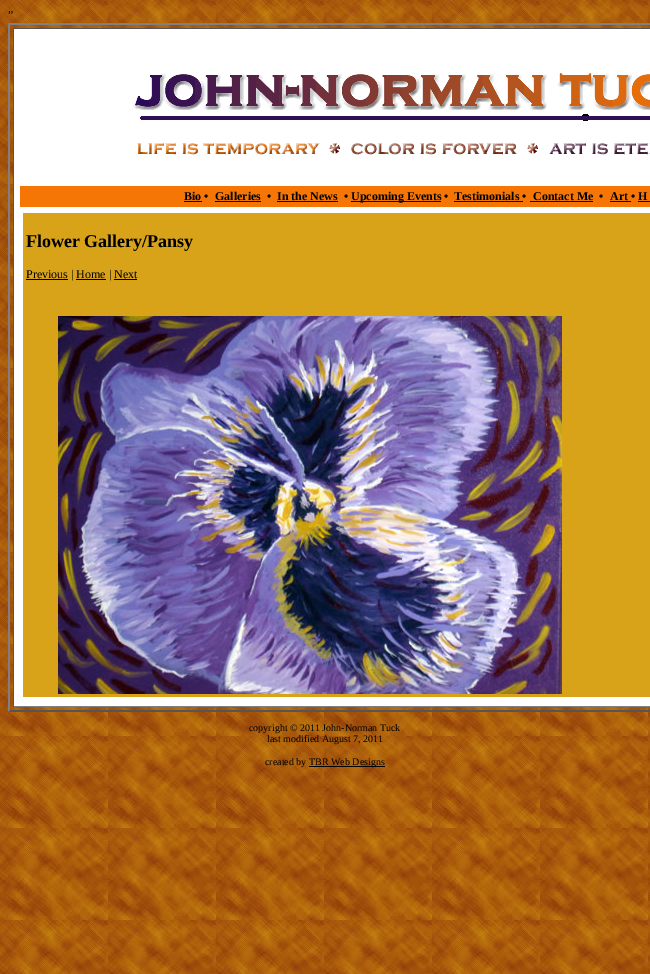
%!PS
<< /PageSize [650 974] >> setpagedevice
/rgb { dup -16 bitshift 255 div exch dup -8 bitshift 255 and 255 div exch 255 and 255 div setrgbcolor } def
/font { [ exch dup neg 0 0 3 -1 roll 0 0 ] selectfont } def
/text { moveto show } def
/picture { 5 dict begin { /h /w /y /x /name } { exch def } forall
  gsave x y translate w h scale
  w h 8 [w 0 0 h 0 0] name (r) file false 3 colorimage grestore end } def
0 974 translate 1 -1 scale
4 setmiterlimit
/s1 { /LiberationSerif-Regular 12 font 16#000000 rgb } def
/s2 { /LiberationSerif-Bold 12 font 16#000000 rgb } def
/s3 { /LiberationSerif-Bold 18 font 16#000000 rgb } def
/s4 { /LiberationSerif-Regular 10 font 16#000000 rgb } def
16#FFFFFF rgb
0 0 650 974 rectfill
(pic1.raw) 0 0 650 974 picture
s1
(”) 8 19 text
16#808080 rgb
8 23 moveto 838 23 lineto 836 25 lineto 10 25 lineto closepath fill
16#555555 rgb
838 712 moveto 8 712 lineto 10 710 lineto 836 710 lineto closepath fill
16#808080 rgb
8 712 moveto 8 23 lineto 10 25 lineto 10 710 lineto closepath fill
16#FFFFFF rgb
14 29 636 677 rectfill
16#555555 rgb
13 28 637 1 rectfill
16#808080 rgb
13 706 637 1 rectfill
16#555555 rgb
13 28 1 679 rectfill
(pic2.raw) 133 73 517 82 picture
16#F57605 rgb
20 186 630 21 rectfill
s2
(Bio •) 184 200 text
184 201 18 1 rectfill
(Galleries) 215 200 text
215 201 46 1 rectfill
(•) 267 200 text
(In the News) 277 200 text
277 201 61 1 rectfill
(•) 344 200 text
351 201 90 1 rectfill
(Upcoming Events •) 351 200 text
(Testimonials •) 454 200 text
454 201 69 1 rectfill
(Contact Me) 533 200 text
530 201 63 1 rectfill
(•) 599 200 text
(Art • H) 610 200 text
610 201 21 1 rectfill
638 201 12 1 rectfill
16#D8A319 rgb
23 213 627 484 rectfill
s3
(Flower Gallery/Pansy) 26 247 text
26 279 42 1 rectfill
s1
(Previous | Home | Next) 26 278 text
76 279 30 1 rectfill
114 279 23 1 rectfill
(pic3.raw) 58 316 504 378 picture
s4
(copyright © 2011 John-Norman Tuck) 249 731 text
(last modified August 7, 2011) 267 742 text
(created by) 265 765 text
309 766 76 1 rectfill
(TBR Web Designs) 309 765 text
showpage
